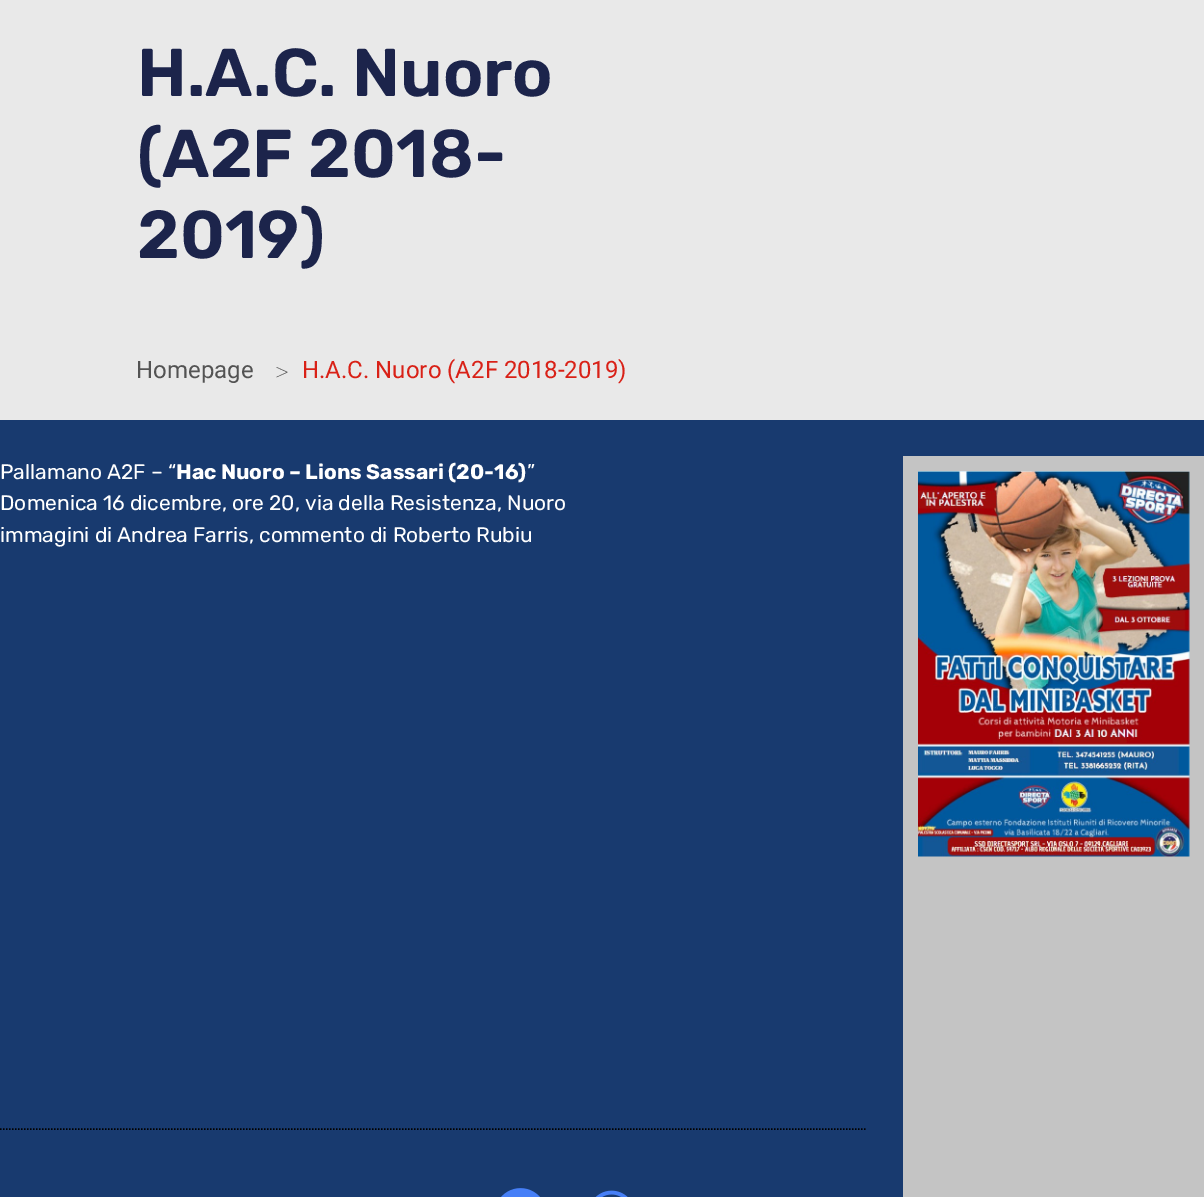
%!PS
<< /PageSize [1204 1197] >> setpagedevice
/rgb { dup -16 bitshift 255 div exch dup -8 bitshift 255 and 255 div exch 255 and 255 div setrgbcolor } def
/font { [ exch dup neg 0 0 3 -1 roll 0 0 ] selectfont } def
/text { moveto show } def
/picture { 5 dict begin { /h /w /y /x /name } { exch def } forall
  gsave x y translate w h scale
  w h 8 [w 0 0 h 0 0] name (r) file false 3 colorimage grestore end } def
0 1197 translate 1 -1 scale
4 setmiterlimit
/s1 { /Rubik-SemiBold 67.5 font 16#1C244B rgb } def
/s2 { /Roboto-Regular 24 font 16#535353 rgb } def
/s3 { /Roboto-Thin 27 font 16#535353 rgb } def
/s4 { /Roboto-Regular 24 font 16#D92117 rgb } def
/s5 { /Rubik-Regular 21 font 16#FFFFFF rgb } def
/s6 { /Rubik-Bold 21 font 16#FFFFFF rgb } def
16#183A6F rgb
0 0 1204 1197 rectfill
16#E9E9E9 rgb
0 0 1204 420 rectfill
s1
(H.A.C. Nuoro) 137 96 text
(\(A2F 2018-) 137 177 text
(2019\)) 137 258 text
s2
(Homepage) 136 378 text
s3
(>) 275 381 text
s4
(H.A.C. Nuoro \(A2F 2018-2019\)) 302 378 text
s5
(Pallamano A2F – “) 0 479 text
s6
(Hac Nuoro – Lions Sassari \(20-16\)) 176 479 text
s5
(”) 527 479 text
(Domenica 16 dicembre, ore 20, via della Resistenza, Nuoro) 0 510 text
(immagini di Andrea Farris, commento di Roberto Rubiu) 0 542 text
16#000000 rgb
1.5 setlinewidth
[1.5 1.5] 0 setdash
0 1129 moveto 867 1129 lineto stroke
(pic1.raw) 501 1188 39 9 picture
(pic2.raw) 595 1190 33 7 picture
16#C4C4C4 rgb
903 456 301 741 rectfill
(pic3.raw) 918 471 272 386 picture
showpage
